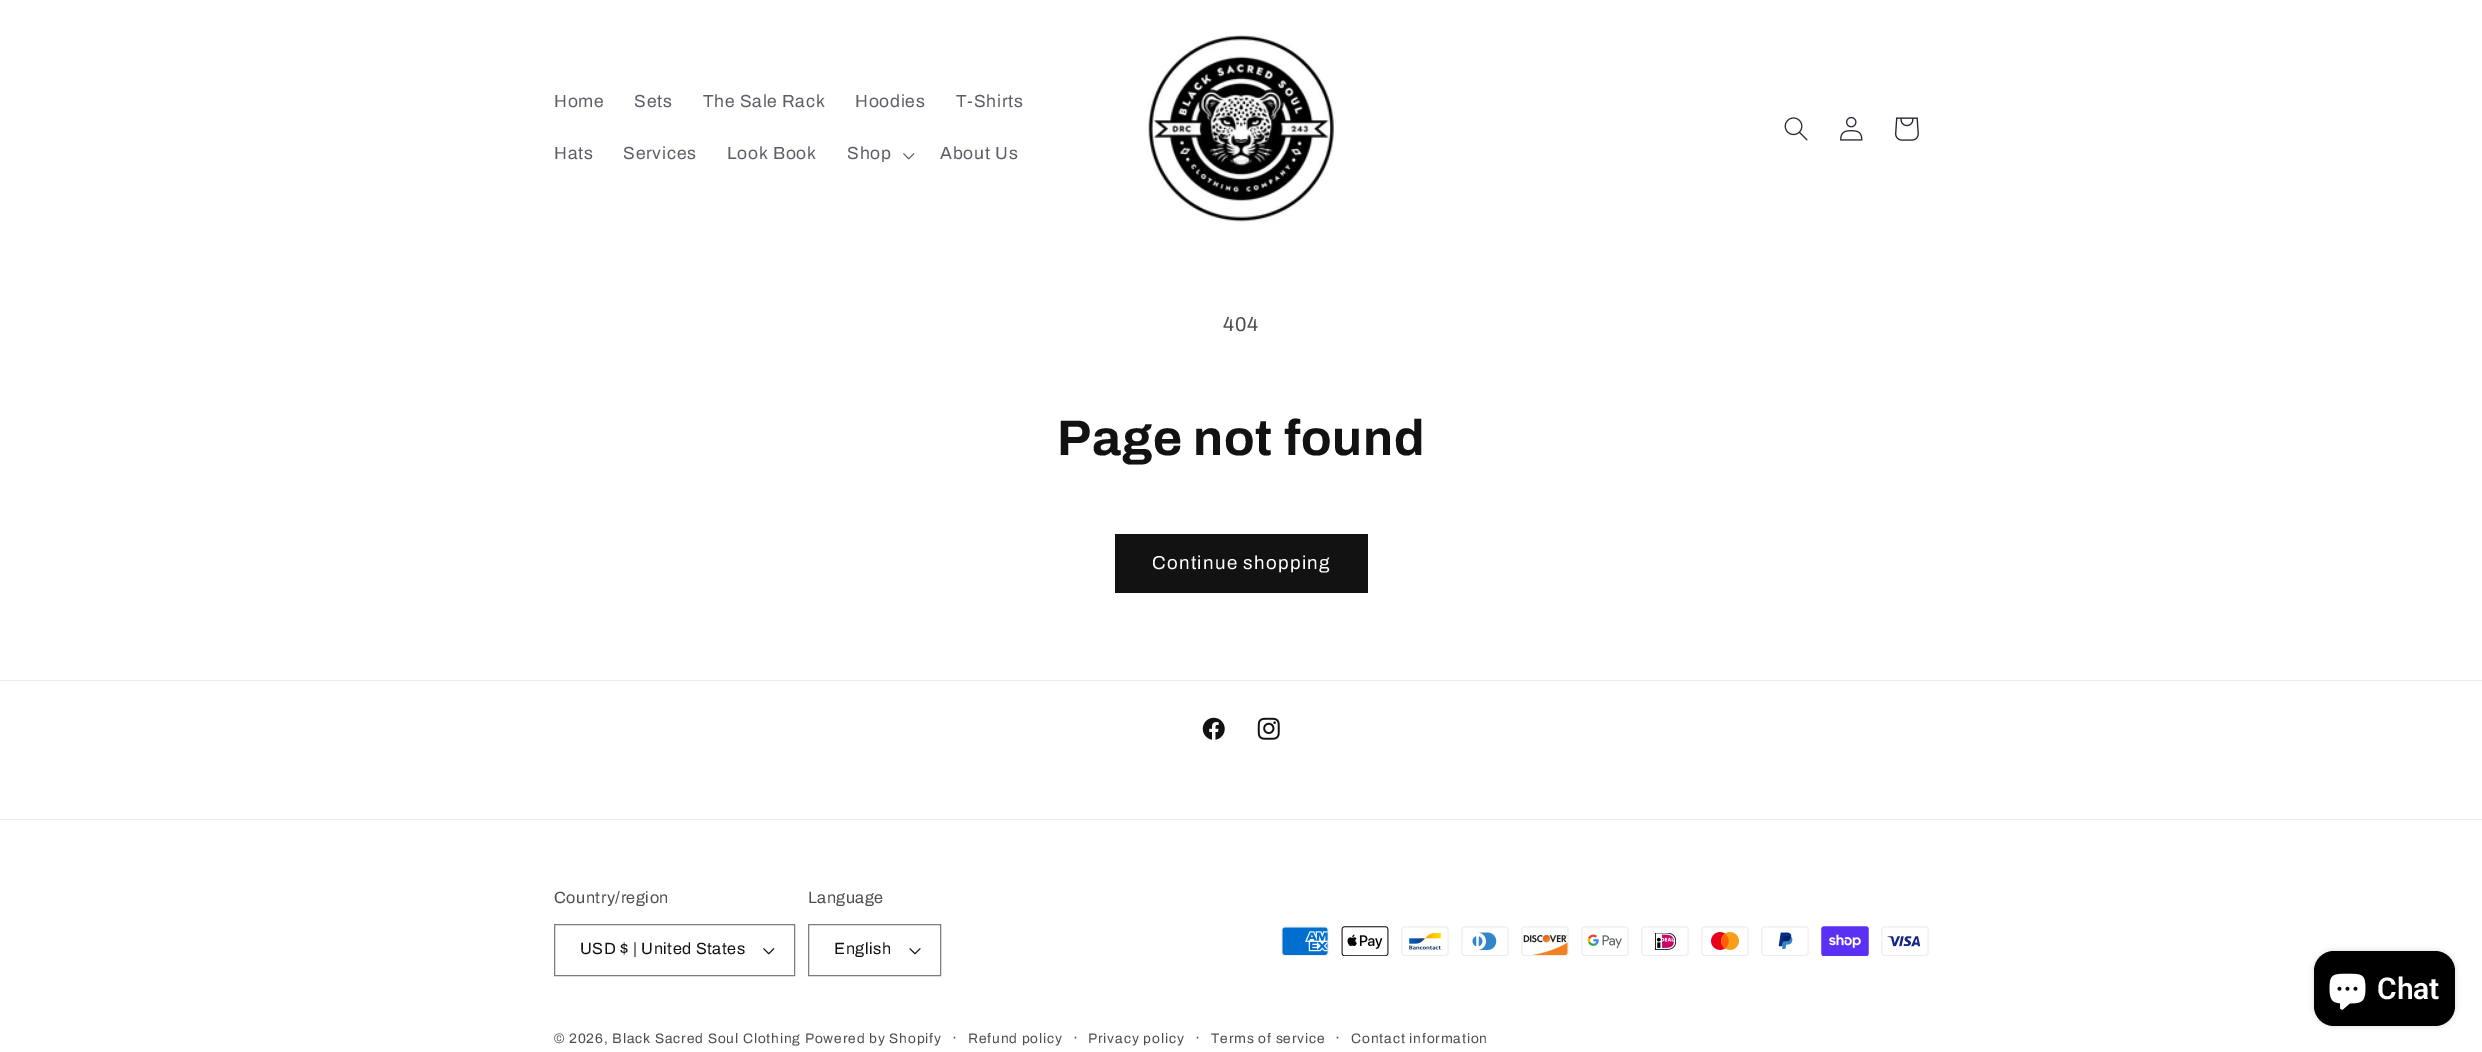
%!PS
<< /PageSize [2482 1052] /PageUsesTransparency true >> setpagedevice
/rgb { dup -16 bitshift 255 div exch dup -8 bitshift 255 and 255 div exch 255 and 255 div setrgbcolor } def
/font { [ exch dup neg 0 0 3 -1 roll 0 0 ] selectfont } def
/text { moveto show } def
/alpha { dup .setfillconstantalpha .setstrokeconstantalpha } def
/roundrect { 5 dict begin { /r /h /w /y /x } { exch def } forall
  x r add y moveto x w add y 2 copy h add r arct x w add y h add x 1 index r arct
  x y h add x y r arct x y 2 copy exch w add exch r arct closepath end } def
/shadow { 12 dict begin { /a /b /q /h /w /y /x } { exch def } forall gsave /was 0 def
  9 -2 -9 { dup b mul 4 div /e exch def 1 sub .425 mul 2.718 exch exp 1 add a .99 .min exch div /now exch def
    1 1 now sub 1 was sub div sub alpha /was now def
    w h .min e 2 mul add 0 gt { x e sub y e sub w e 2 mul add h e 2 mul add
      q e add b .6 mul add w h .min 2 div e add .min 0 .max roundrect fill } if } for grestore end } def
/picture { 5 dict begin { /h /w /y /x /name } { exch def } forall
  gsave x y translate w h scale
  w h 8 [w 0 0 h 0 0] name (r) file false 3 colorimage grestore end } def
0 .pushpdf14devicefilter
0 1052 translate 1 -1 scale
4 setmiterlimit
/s1 { /Roboto-SemiBold 30 font 16#FFFFFF rgb } def
16#FFFFFF rgb
0 0 2482 1052 rectfill
/Archivo-Regular 17.5 font
16#5B5E66 rgb
554 107 moveto 0.75 0 (Home) ashow
634 107 moveto 0.75 0 (Sets) ashow
703 107 moveto 0.75 0 (The Sale Rack) ashow
855 107 moveto 0.75 0 (Hoodies) ashow
956 107 moveto 0.75 0 (T-Shirts) ashow
554 159 moveto 0.75 0 (Hats) ashow
623 159 moveto 0.75 0 (Services) ashow
727 159 moveto 0.75 0 (Look Book) ashow
847 159 moveto 0.75 0 (Shop) ashow
(pic1.raw) 903 153 12 7 picture
940 159 moveto 0.75 0 (About Us) ashow
(pic2.raw) 1148 35 188 189 picture
(pic3.raw) 1784 117 24 24 picture
(pic4.raw) 1840 116 23 25 picture
(pic5.raw) 1895 117 24 24 picture
/Archivo-Regular 20 font
16#4D4D4D rgb
1223 331 moveto 0.75 0 (404) ashow
/Archivo-Bold 50 font
16#121212 rgb
1057 455 moveto 0.75 0 (Page not found) ashow
1115 534 253 59 rectfill
/Archivo-Regular 18.75 font
16#FFFFFF rgb
1152 569 moveto 1.25 0 (Continue shopping) ashow
16#ECECEC rgb
0 680 2482 1 rectfill
(pic6.raw) 1202 717 23 23 picture
(pic7.raw) 1257 717 23 23 picture
0 819 2482 1 rectfill
/Archivo-Regular 16.25 font
16#4D4D4D rgb
554 903 moveto 0.5 0 (Country/region) ashow
(pic8.raw) 763 948 12 7 picture
16#7D7D7D rgb
554.5 924.5 240 51 rectstroke
16#121212 rgb
580 954 moveto 0.5 0 (USD $ | United States) ashow
16#4D4D4D rgb
808 903 moveto 0.5 0 (Language) ashow
(pic9.raw) 909 948 12 7 picture
16#7D7D7D rgb
808.5 924.5 132 51 rectstroke
16#121212 rgb
834 954 moveto 0.5 0 (English) ashow
(pic10.raw) 1281 926 48 30 picture
(pic11.raw) 1341 926 48 30 picture
(pic12.raw) 1401 926 48 30 picture
(pic13.raw) 1461 926 48 30 picture
(pic14.raw) 1521 926 48 30 picture
(pic15.raw) 1581 926 48 30 picture
(pic16.raw) 1641 926 48 30 picture
(pic17.raw) 1701 926 48 30 picture
(pic18.raw) 1761 926 48 30 picture
(pic19.raw) 1821 926 48 30 picture
(pic20.raw) 1881 926 48 30 picture
/Archivo-Regular 13.75 font
16#4D4D4D rgb
554 1043 moveto 0.88 0 (© 2026, Black Sacred Soul Clothing Powered by Shopify) ashow
/Archivo-Regular 15 font
952 1043 moveto 0.88 0 (·) ashow
/Archivo-Regular 13.75 font
968 1043 moveto 0.88 0 (Refund policy) ashow
/Archivo-Regular 15 font
1073 1043 moveto 0.88 0 (·) ashow
/Archivo-Regular 13.75 font
1088 1043 moveto 0.88 0 (Privacy policy) ashow
/Archivo-Regular 15 font
1195 1043 moveto 0.88 0 (·) ashow
/Archivo-Regular 13.75 font
1211 1043 moveto 0.88 0 (Terms of service) ashow
/Archivo-Regular 15 font
1335 1043 moveto 0.88 0 (·) ashow
/Archivo-Regular 13.75 font
1351 1043 moveto 0.88 0 (Contact information) ashow
16#000000 rgb
2314 951 141 75 20 3 0.15 shadow
2314 951 141 75 20 roundrect fill
(pic21.raw) 2329 973 37 37 picture
s1
(Chat) 2377 999 text
.poppdf14devicefilter showpage
